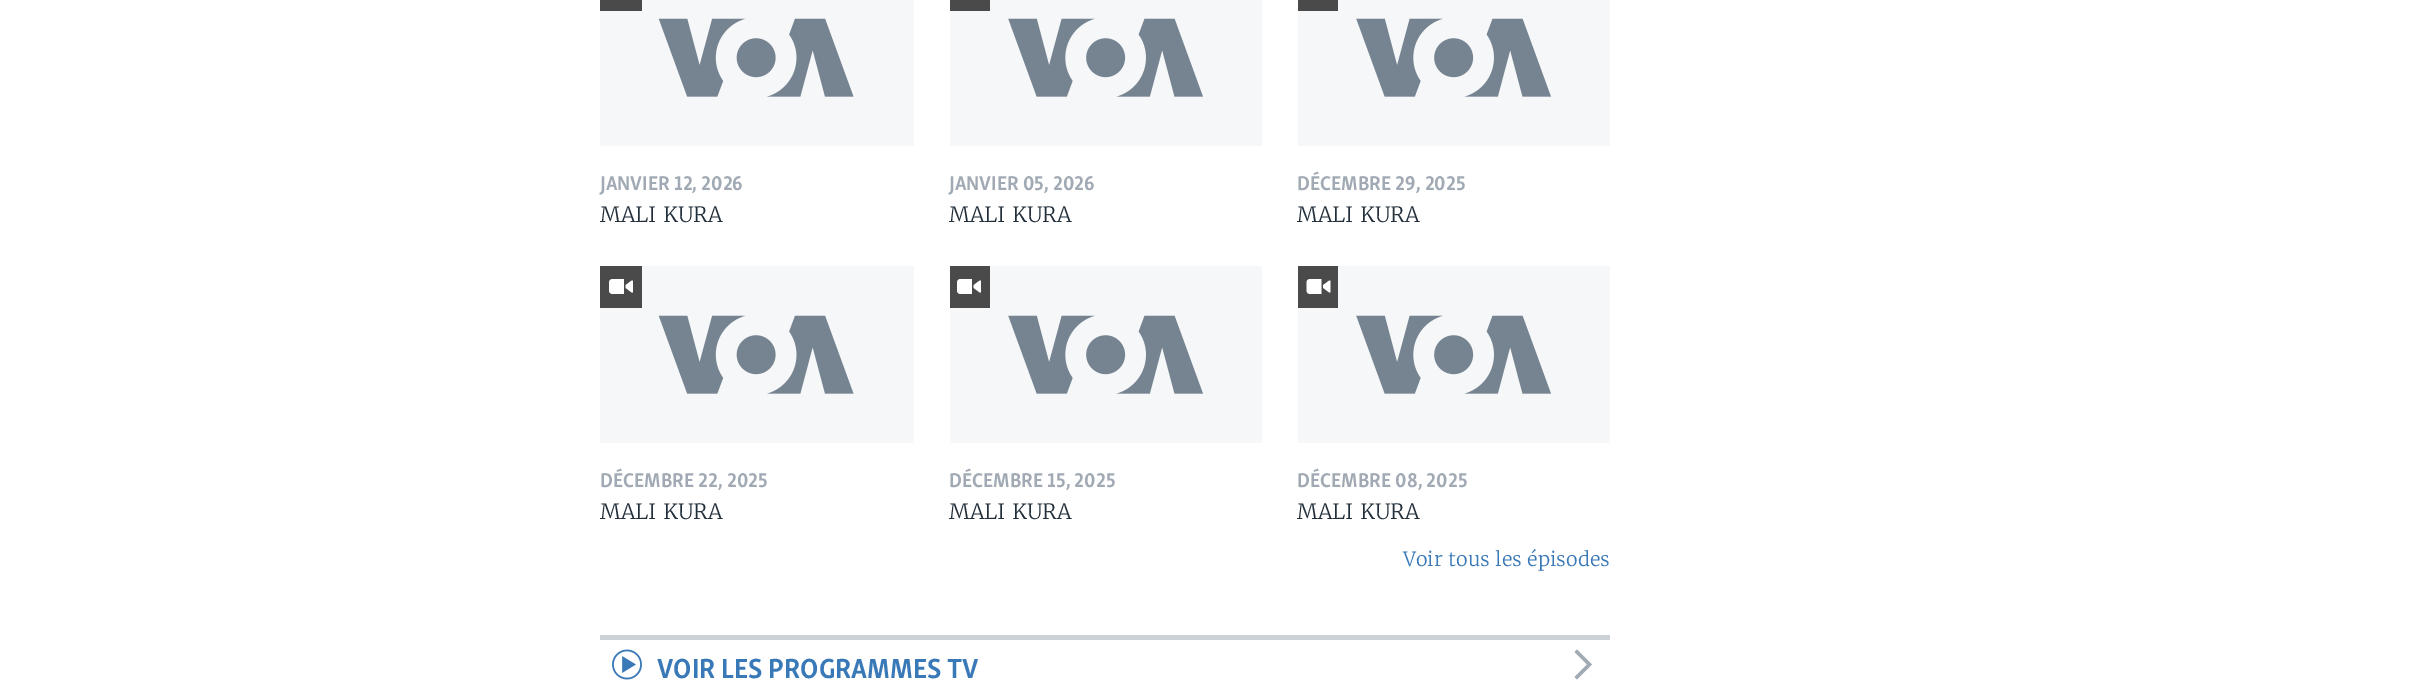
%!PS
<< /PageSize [2421 682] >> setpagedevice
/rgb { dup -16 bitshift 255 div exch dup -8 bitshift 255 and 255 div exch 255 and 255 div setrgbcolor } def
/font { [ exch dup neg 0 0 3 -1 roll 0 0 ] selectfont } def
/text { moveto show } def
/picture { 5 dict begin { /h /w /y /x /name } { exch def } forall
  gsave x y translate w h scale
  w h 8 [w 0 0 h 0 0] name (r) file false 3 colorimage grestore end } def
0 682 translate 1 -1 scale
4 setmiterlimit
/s1 { /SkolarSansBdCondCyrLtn-Bold 20.5 font 16#A1AAB4 rgb } def
/s2 { /Merriweather-Light 21 font 16#222F3A rgb } def
/s3 { /Merriweather-Light 19.5 font 16#3A79B7 rgb } def
/s4 { /SkolarSansBdCondCyrLtn-Bold 28.4 font 16#3A79B7 rgb } def
16#FFFFFF rgb
0 0 2421 682 rectfill
16#F6F7F8 rgb
600 0 314 146 rectfill
(pic1.raw) 658 18 196 79 picture
16#4A4A4A rgb
600 0 42 11 rectfill
s1
(JANVIER 12, 2026) 600 190 text
s2
(MALI KURA) 600 222 text
16#F6F7F8 rgb
950 0 312 146 rectfill
(pic2.raw) 1008 18 195 79 picture
16#4A4A4A rgb
950 0 40 11 rectfill
s1
(JANVIER 05, 2026) 949 190 text
s2
(MALI KURA) 949 222 text
16#F6F7F8 rgb
1298 0 312 146 rectfill
(pic2.raw) 1356 18 195 79 picture
16#4A4A4A rgb
1298 0 40 11 rectfill
s1
(DÉCEMBRE 29, 2025) 1297 190 text
s2
(MALI KURA) 1297 222 text
16#F6F7F8 rgb
600 266 314 177 rectfill
(pic1.raw) 658 315 196 79 picture
16#4A4A4A rgb
600 266 42 42 rectfill
(pic3.raw) 609 279 24 15 picture
s1
(DÉCEMBRE 22, 2025) 600 487 text
s2
(MALI KURA) 600 519 text
16#F6F7F8 rgb
950 266 312 177 rectfill
(pic2.raw) 1008 315 195 79 picture
16#4A4A4A rgb
950 266 40 42 rectfill
(pic3.raw) 957 279 24 15 picture
s1
(DÉCEMBRE 15, 2025) 949 487 text
s2
(MALI KURA) 949 519 text
16#F6F7F8 rgb
1298 266 312 177 rectfill
(pic2.raw) 1356 315 195 79 picture
16#4A4A4A rgb
1298 266 40 42 rectfill
(pic4.raw) 1306 279 25 15 picture
s1
(DÉCEMBRE 08, 2025) 1297 487 text
s2
(MALI KURA) 1297 519 text
s3
(Voir tous les épisodes) 1403 566 text
16#CBD1D6 rgb
600 635 1010 5 rectfill
(pic5.raw) 612 649 30 31 picture
s4
(VOIR LES PROGRAMMES TV) 657 678 text
16#A1AAB4 rgb
1577 679.5 moveto 1592 664.5 lineto 1577 649.5 lineto 1574.5 652 lineto 1587 664.5 lineto 1574.5 677 lineto closepath fill
showpage
